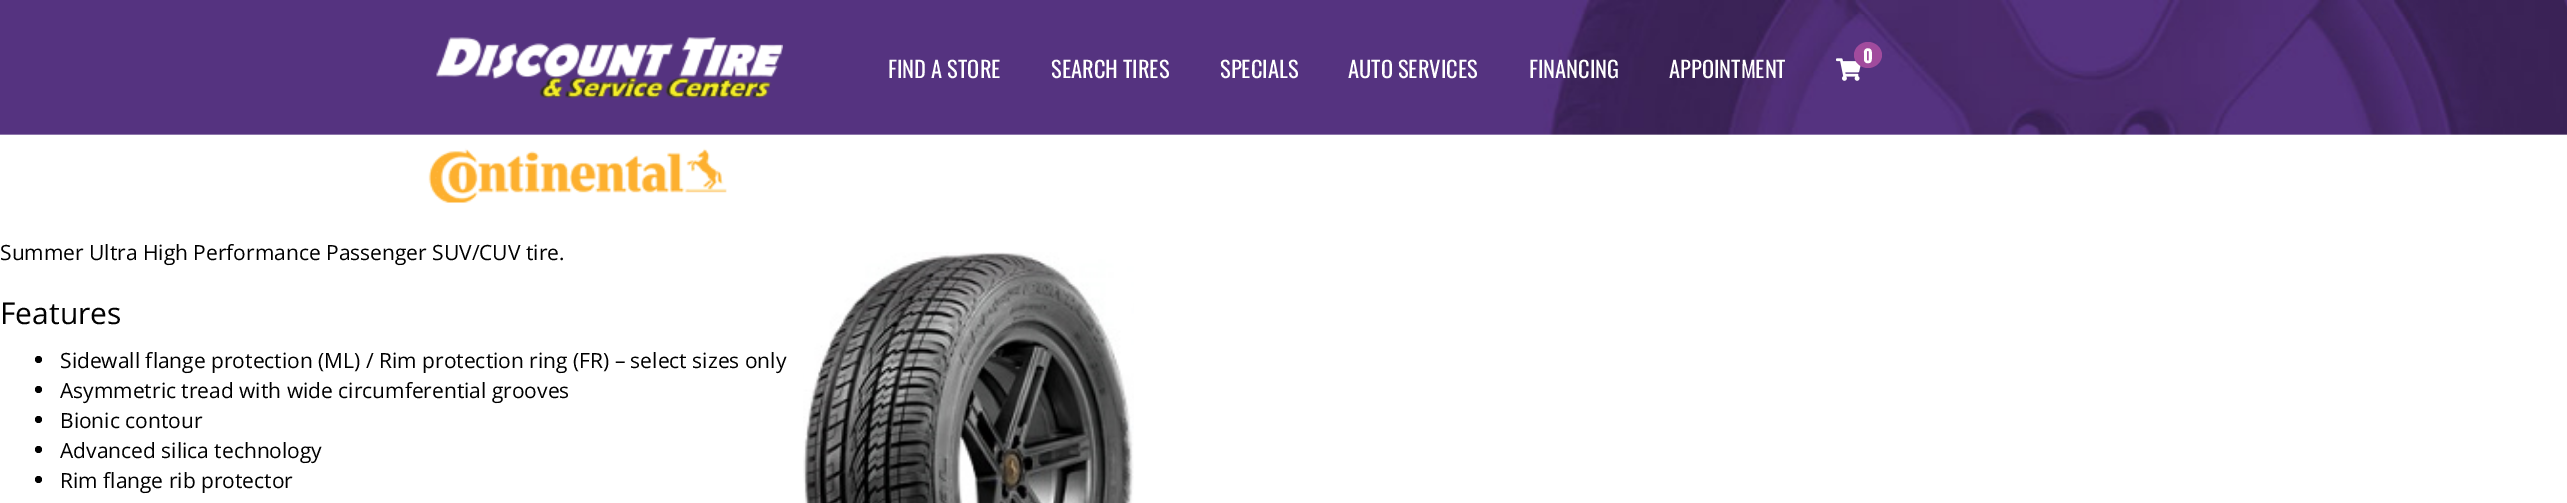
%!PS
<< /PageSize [2567 503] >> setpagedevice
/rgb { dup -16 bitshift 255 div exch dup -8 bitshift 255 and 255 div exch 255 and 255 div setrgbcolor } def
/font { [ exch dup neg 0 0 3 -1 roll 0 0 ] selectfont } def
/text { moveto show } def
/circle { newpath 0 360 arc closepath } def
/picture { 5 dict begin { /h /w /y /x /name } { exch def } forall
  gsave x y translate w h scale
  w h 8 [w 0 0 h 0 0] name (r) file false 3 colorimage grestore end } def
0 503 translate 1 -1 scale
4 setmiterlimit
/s1 { /Oswald-Bold 18 font 16#FFFFFF rgb } def
/s2 { /Oswald-Regular 22.5 font 16#FFFFFF rgb } def
/s3 { /OpenSans-Regular 21 font 16#000000 rgb } def
/s4 { /OpenSans-Regular 30 font 16#000000 rgb } def
16#FFFFFF rgb
0 0 2567 503 rectfill
(pic1.raw) 0 0 2567 135 picture
(pic2.raw) 436 37 347 61 picture
(pic3.raw) 1836 58 25 23 picture
16#A14B9D rgb
1868 42 moveto 1875.5 42 1882 48 1882 55 curveto 1882 62 1875.5 68 1868 68 curveto 1860.5 68 1854 62 1854 55 curveto 1854 48 1860.5 42 1868 42 curveto closepath fill
s1
(0) 1863 63 text
s2
(FIND A STORE) 888 78 text
(SEARCH TIRES) 1051 78 text
(SPECIALS) 1220 78 text
(AUTO SERVICES) 1348 78 text
(FINANCING) 1529 78 text
(APPOINTMENT) 1669 78 text
(pic4.raw) 428 148 299 55 picture
s3
(Summer Ultra High Performance Passenger SUV/CUV tire.) 0 260 text
s4
(Features) 0 324 text
38.5 359.5 3.5 circle fill
s3
(Sidewall flange protection \(ML\) / Rim protection ring \(FR\) – select sizes only) 60 368 text
38.5 389.5 3.5 circle fill
(Asymmetric tread with wide circumferential grooves) 60 398 text
38.5 419.5 3.5 circle fill
(Bionic contour) 60 428 text
38.5 449.5 3.5 circle fill
(Advanced silica technology) 60 458 text
38.5 479.5 3.5 circle fill
(Rim flange rib protector) 60 488 text
(pic5.raw) 803 252 331 251 picture
showpage
